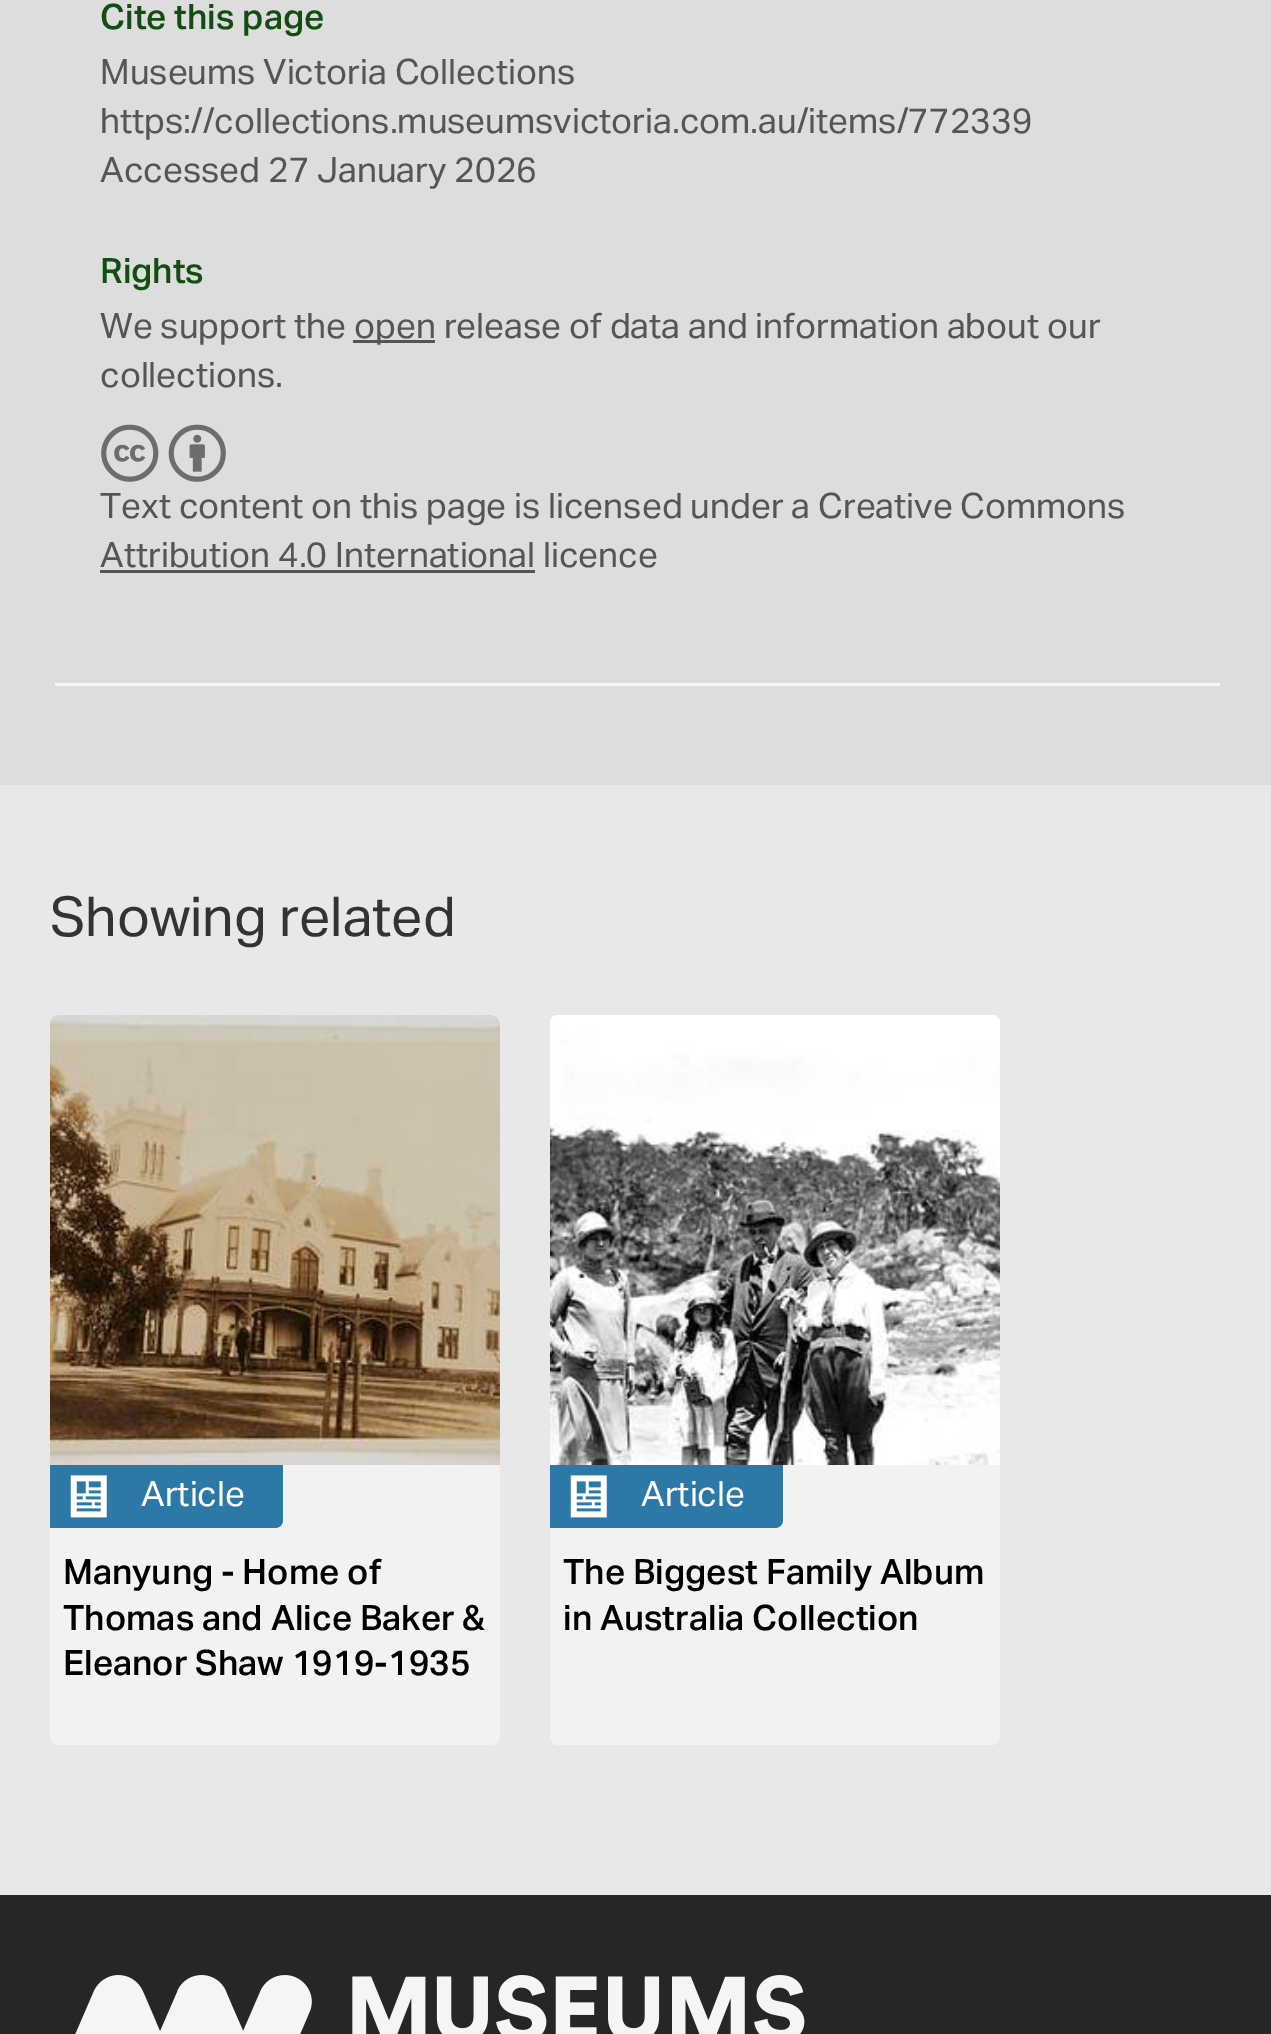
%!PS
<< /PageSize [1271 2034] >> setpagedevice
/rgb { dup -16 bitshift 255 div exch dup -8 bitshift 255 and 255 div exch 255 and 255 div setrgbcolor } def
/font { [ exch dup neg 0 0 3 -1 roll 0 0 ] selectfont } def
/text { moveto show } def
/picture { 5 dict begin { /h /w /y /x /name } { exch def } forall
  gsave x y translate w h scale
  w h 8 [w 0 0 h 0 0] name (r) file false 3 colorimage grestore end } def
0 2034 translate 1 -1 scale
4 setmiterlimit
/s1 { /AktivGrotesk-Medium 35 font 16#134D13 rgb } def
/s2 { /AktivGrotesk-Regular 35 font 16#555555 rgb } def
/s3 { /AktivGrotesk-Regular 55 font 16#333333 rgb } def
/s4 { /AktivGrotesk-Regular 35 font 16#FFFFFF rgb } def
/s5 { /AktivGrotesk-Medium 35 font 16#000000 rgb } def
16#DDDDDD rgb
0 0 1271 2034 rectfill
16#F6F6F6 rgb
55 683 1165 3 rectfill
s1
(Cite this page) 100 29 text
s2
(Museums Victoria Collections) 100 84 text
(https://collections.museumsvictoria.com.au/items/772339) 100 133 text
(Accessed 27 January 2026) 100 182 text
s1
(Rights) 100 283 text
s2
(We support the) 100 338 text
353 340 82 3 rectfill
(open release of data and information about our) 354 338 text
(collections.) 100 387 text
(pic1.raw) 101 424 58 58 picture
(pic2.raw) 168 424 58 58 picture
(Text content on this page is licensed under a Creative Commons) 100 518 text
(Attribution 4.0 International licence) 100 567 text
100 570 435 3 rectfill
16#E8E8E8 rgb
0 785 1271 1110 rectfill
s3
(Showing related) 50 936 text
16#FFFFFF rgb
58 1015 moveto 492 1015 lineto 496.5 1015 500 1018.5 500 1023 curveto 500 1465 lineto 50 1465 lineto 50 1023 lineto 50 1018.5 53.5 1015 58 1015 curveto closepath fill
(pic3.raw) 50 1015 450 450 picture
16#F2F2F2 rgb
50 1465 moveto 500 1465 lineto 500 1737 lineto 500 1741.5 496.5 1745 492 1745 curveto 58 1745 lineto 53.5 1745 50 1741.5 50 1737 curveto closepath fill
16#2C79A8 rgb
50 1465 moveto 283 1465 lineto 283 1520 lineto 283 1524.5 279.5 1528 275 1528 curveto 50 1528 lineto closepath fill
(pic4.raw) 70 1475 37 43 picture
s4
(Article) 141 1506 text
s5
(Manyung - Home of) 63 1584 text
(Thomas and Alice Baker &) 63 1630 text
(Eleanor Shaw 1919-1935) 63 1675 text
16#FFFFFF rgb
558 1015 moveto 992 1015 lineto 996.5 1015 1000 1018.5 1000 1023 curveto 1000 1465 lineto 550 1465 lineto 550 1023 lineto 550 1018.5 553.5 1015 558 1015 curveto closepath fill
(pic5.raw) 550 1020 450 445 picture
16#F2F2F2 rgb
550 1465 moveto 1000 1465 lineto 1000 1737 lineto 1000 1741.5 996.5 1745 992 1745 curveto 558 1745 lineto 553.5 1745 550 1741.5 550 1737 curveto closepath fill
16#2C79A8 rgb
550 1465 moveto 783 1465 lineto 783 1520 lineto 783 1524.5 779.5 1528 775 1528 curveto 550 1528 lineto closepath fill
(pic4.raw) 570 1475 37 43 picture
s4
(Article) 641 1506 text
s5
(The Biggest Family Album) 563 1584 text
(in Australia Collection) 563 1630 text
16#262626 rgb
0 1895 1271 139 rectfill
(pic6.raw) 75 1975 730 59 picture
showpage
